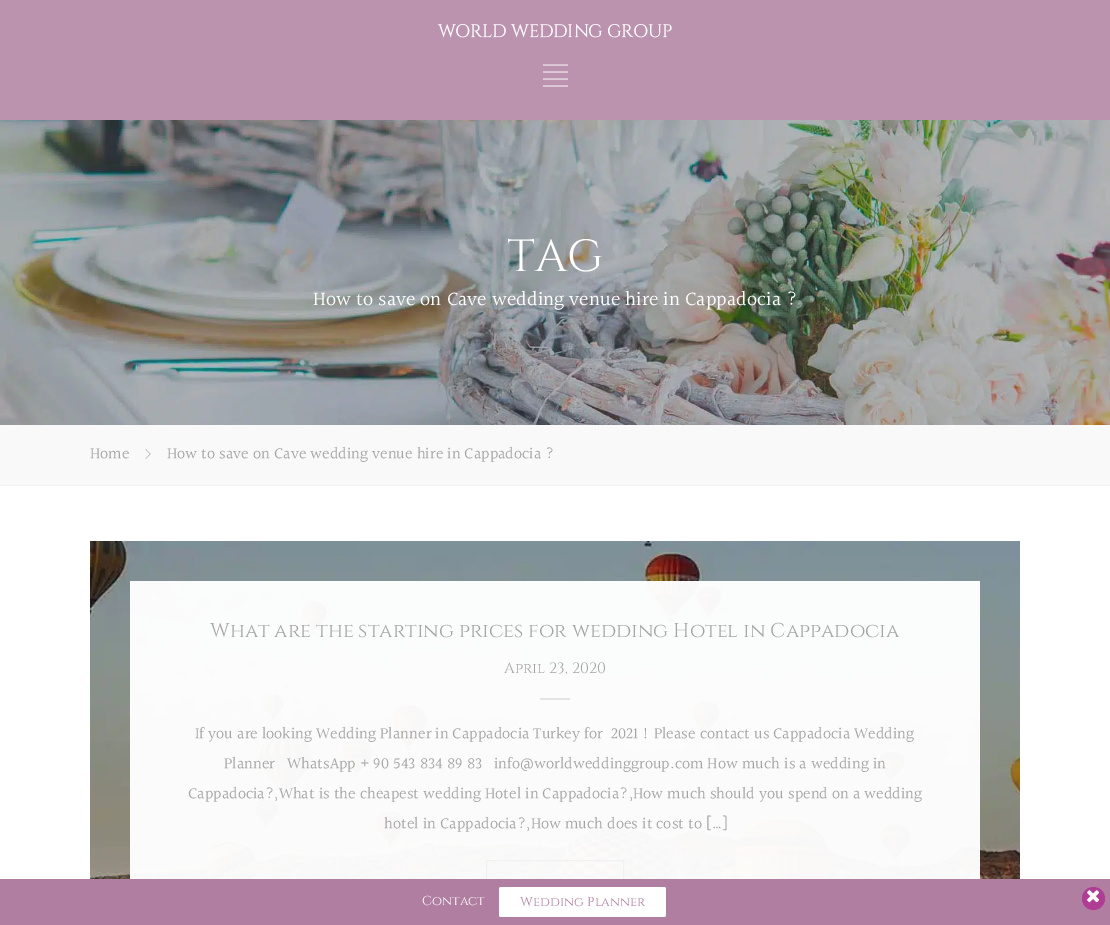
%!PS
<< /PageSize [1110 925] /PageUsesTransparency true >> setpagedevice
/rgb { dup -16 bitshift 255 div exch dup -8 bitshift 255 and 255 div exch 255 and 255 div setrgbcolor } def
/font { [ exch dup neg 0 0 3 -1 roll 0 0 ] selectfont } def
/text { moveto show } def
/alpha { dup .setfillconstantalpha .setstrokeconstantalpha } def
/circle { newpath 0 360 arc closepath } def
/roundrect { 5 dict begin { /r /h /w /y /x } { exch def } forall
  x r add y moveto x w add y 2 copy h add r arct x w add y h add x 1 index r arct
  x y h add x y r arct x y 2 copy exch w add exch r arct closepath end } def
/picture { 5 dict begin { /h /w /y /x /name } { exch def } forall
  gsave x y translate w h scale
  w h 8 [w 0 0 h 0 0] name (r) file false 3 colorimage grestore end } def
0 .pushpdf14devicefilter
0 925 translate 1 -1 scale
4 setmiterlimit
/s1 { /Cinzel-Regular 45 font 16#FFFFFF rgb } def
/s2 { /Halant-Regular 20 font 16#FFFFFF rgb } def
/s3 { /Halant-Regular 16 font 16#A4A4A4 rgb } def
/s4 { /Cinzel-Regular 20 font 16#A4A4A4 rgb } def
/s5 { /Cinzel-Regular 15 font 16#A4A4A4 rgb } def
/s6 { /Cinzel-Regular 13 font 16#FFFFFF rgb } def
/s7 { /Cinzel-Regular 13 font 16#AF7EA0 rgb } def
16#FFFFFF rgb
0 0 1110 925 rectfill
16#BB93AF rgb
0 0 1110 120 rectfill
(pic1.raw) 437 24 235 14 picture
(pic2.raw) 543 64 25 23 picture
(pic3.raw) 0 120 1110 305 picture
s1
(TAG) 507 271 text
s2
(How to save on Cave wedding venue hire in Cappadocia ?) 313 306 text
16#F9F9F9 rgb
0 425 1110 60 rectfill
16#F1F1F1 rgb
0 485 1110 1 rectfill
s3
(Home) 90 459 text
(pic4.raw) 145 449 6 10 picture
(How to save on Cave wedding venue hire in Cappadocia ?) 167 459 text
(pic5.raw) 90 541 930 338 picture
0.97 alpha
16#FFFFFF rgb
130 581 850 298 rectfill
1 alpha
s4
(What are the starting prices for wedding Hotel in Cappadocia) 210 637 text
s5
(April 23, 2020) 504 673 text
16#E4E4E4 rgb
540 698 30 2 rectfill
s3
(If you are looking Wedding Planner in Cappadocia Turkey for  2021 ! Please contact us Cappadocia Wedding) 195 739 text
(Planner   WhatsApp + 90 543 834 89 83) 224 769 text
(info@worldweddinggroup.com How much is a wedding in) 494 769 text
(Cappadocia?,What is the cheapest wedding Hotel in Cappadocia?,How much should you spend on a wedding) 188 799 text
(hotel in Cappadocia?,How much does it cost to […]) 384 829 text
16#F1F1F1 rgb
486.5 860.5 137 37 rectstroke
16#AF7EA0 rgb
0 879 1110 46 rectfill
s6
(Contact) 422 905 text
499 887 167 30 2 roundrect fill
s7
(Wedding Planner) 520 906 text
16#AF3D93 rgb
1093.5 898.5 11.5 circle fill
(pic6.raw) 1087 890 12 13 picture
.poppdf14devicefilter showpage
